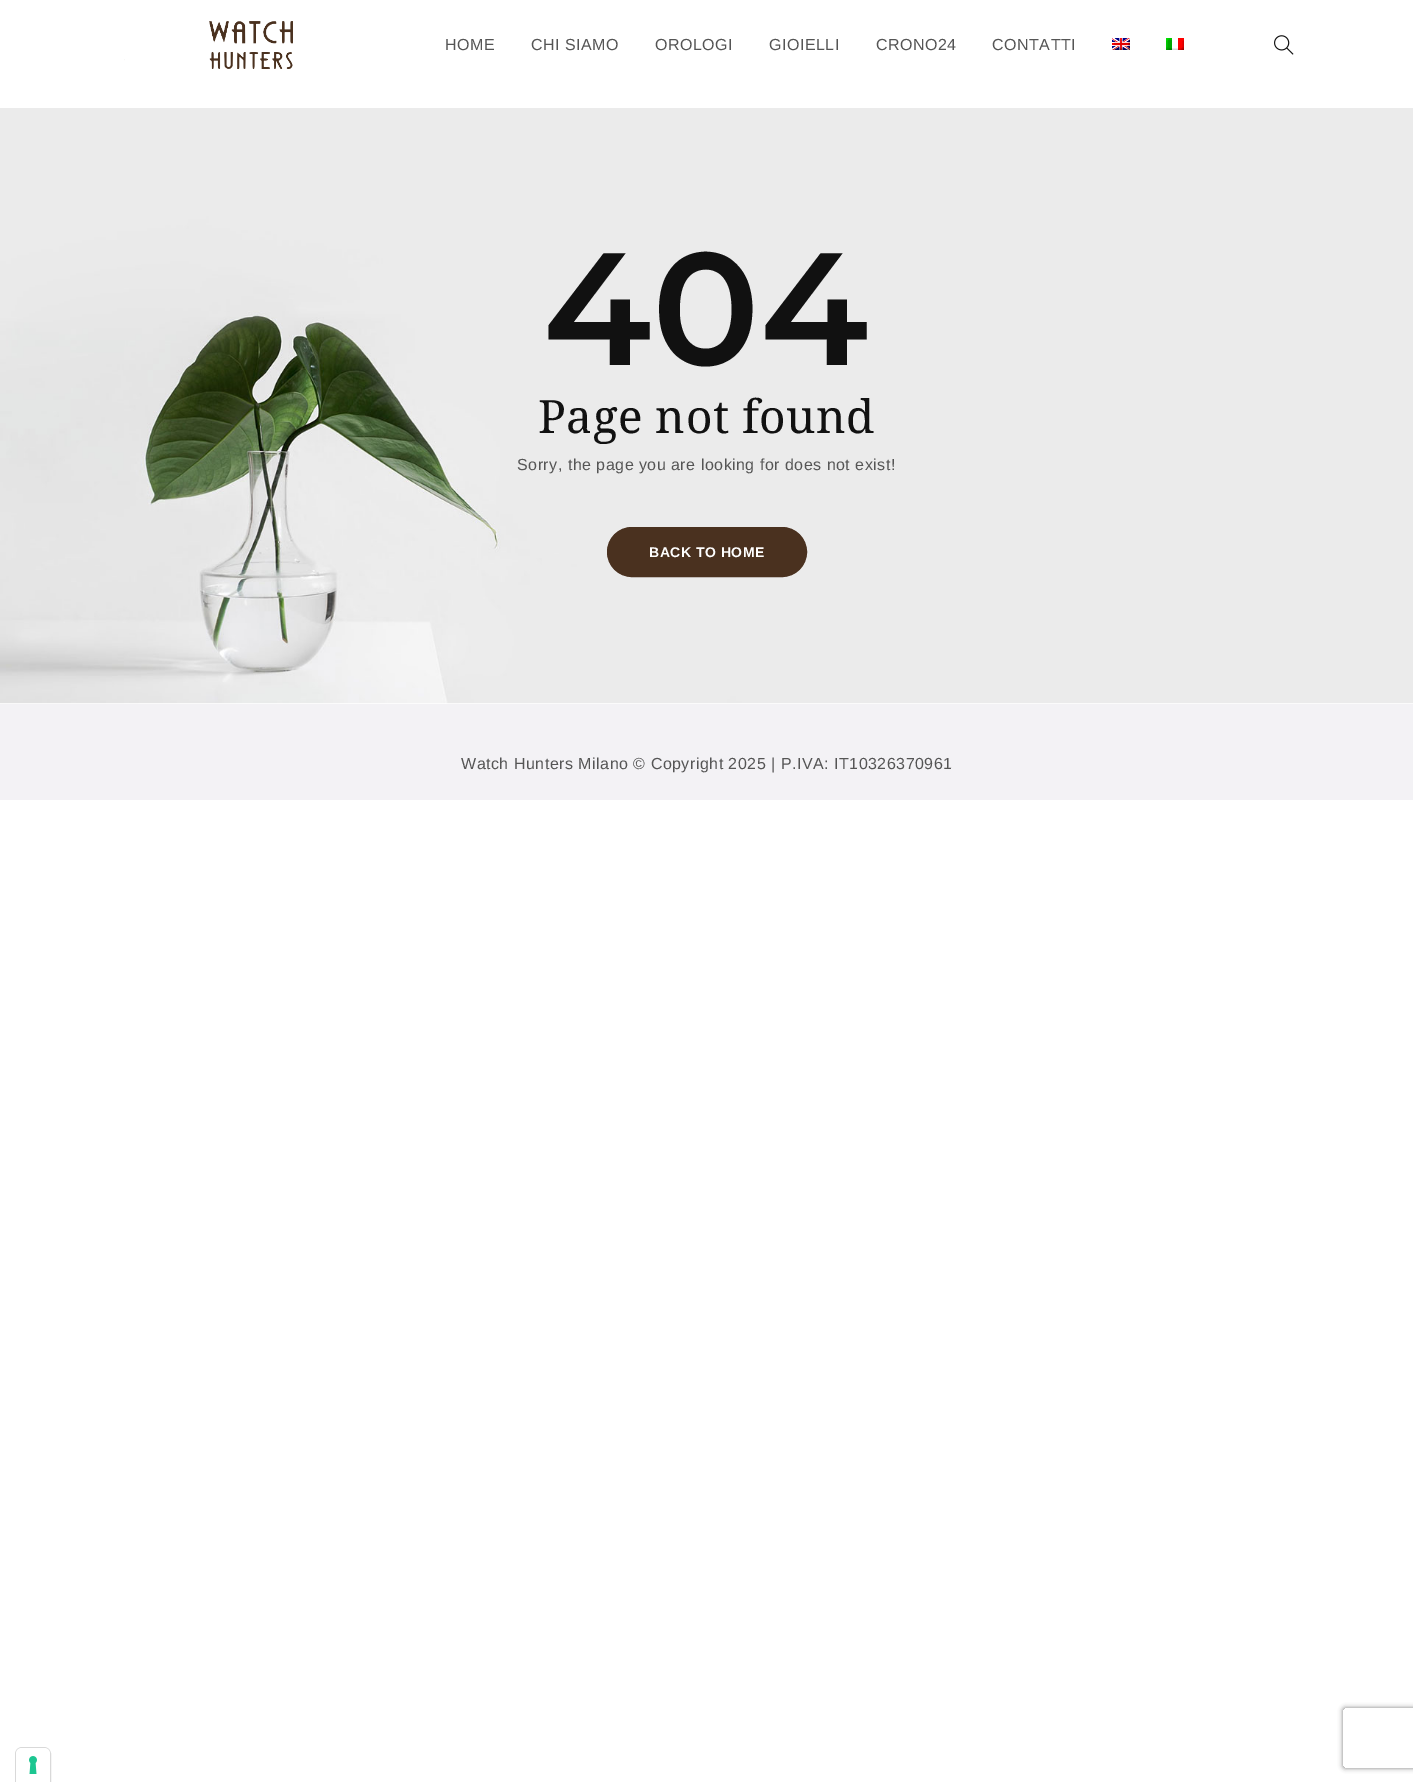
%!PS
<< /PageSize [1413 1782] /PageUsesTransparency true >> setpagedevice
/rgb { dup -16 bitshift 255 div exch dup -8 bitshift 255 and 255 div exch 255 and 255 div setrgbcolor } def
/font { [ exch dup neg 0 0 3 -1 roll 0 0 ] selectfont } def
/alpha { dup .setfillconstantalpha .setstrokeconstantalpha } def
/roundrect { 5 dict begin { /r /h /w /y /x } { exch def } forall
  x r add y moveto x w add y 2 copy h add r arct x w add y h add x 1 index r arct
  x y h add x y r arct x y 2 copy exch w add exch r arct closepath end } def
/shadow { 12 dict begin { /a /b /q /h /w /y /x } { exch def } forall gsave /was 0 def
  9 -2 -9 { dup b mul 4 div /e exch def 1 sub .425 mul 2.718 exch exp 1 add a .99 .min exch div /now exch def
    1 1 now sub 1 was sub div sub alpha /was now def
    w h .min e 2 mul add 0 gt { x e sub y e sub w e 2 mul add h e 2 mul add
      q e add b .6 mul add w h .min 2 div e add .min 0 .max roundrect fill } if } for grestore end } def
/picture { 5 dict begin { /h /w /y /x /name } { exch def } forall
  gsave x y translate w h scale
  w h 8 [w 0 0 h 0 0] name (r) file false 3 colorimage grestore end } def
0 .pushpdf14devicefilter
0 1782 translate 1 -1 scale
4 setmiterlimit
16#FFFFFF rgb
0 0 1413 1782 rectfill
(pic1.raw) 124 21 169 48 picture
/Arimo-Regular 16 font
16#555555 rgb
445 50 moveto 0.5 0 (HOME) ashow
531 50 moveto 0.5 0 (CHI SIAMO) ashow
655 50 moveto 0.5 0 (OROLOGI) ashow
769 50 moveto 0.5 0 (GIOIELLI) ashow
876 50 moveto 0.5 0 (CRONO24) ashow
992 50 moveto 0.5 0 (CONTATTI) ashow
(pic2.raw) 1112 38 18 12 picture
(pic3.raw) 1166 38 18 12 picture
(pic4.raw) 1274 35 20 20 picture
(pic5.raw) 0 108 1413 596 picture
/Montserrat-SemiBold 160 font
16#111111 rgb
543 365 moveto 0.5 0 (404) ashow
/NotoSerif-Regular 46 font
538 433 moveto 0.5 0 (Page not found) ashow
/Arimo-Regular 16 font
16#555555 rgb
517 470 moveto 0.5 0 (Sorry, the page you are looking for does not exist!) ashow
16#4A311F rgb
607.5 527.5 199 49 24.5 roundrect gsave fill grestore
stroke
/Arimo-Bold 14 font
16#FFFFFF rgb
649 557 moveto 0.5 0 (BACK TO HOME) ashow
16#F3F2F5 rgb
0 704 1413 96 rectfill
/Arimo-Regular 16 font
16#555555 rgb
461 769 moveto 0.5 0 (Watch Hunters Milano © Copyright 2025 | P.IVA: IT10326370961) ashow
16#D9D9D9 rgb
22 1747.5 moveto 44 1747.5 lineto 47.5 1747.5 50.5 1750.5 50.5 1754 curveto 50.5 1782.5 lineto 15.5 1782.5 lineto 15.5 1754 lineto 15.5 1750.5 18.5 1747.5 22 1747.5 curveto closepath stroke
16#FFFFFF rgb
22 1748 moveto 44 1748 lineto 47.5 1748 50 1750.5 50 1754 curveto 50 1782 lineto 16 1782 lineto 16 1754 lineto 16 1750.5 18.5 1748 22 1748 curveto closepath fill
(pic6.raw) 29 1756 8 18 picture
gsave
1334 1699 moveto 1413 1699 lineto 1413 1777 lineto 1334 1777 lineto closepath 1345 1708 moveto 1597 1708 lineto 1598 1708 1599 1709 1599 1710 curveto 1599 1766 lineto 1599 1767 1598 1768 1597 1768 curveto 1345 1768 lineto 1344 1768 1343 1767 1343 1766 curveto 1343 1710 lineto 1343 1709 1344 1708 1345 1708 curveto closepath eoclip newpath
16#808080 rgb
1343 1708 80 60 2 2.5 1 shadow
grestore
.poppdf14devicefilter showpage
